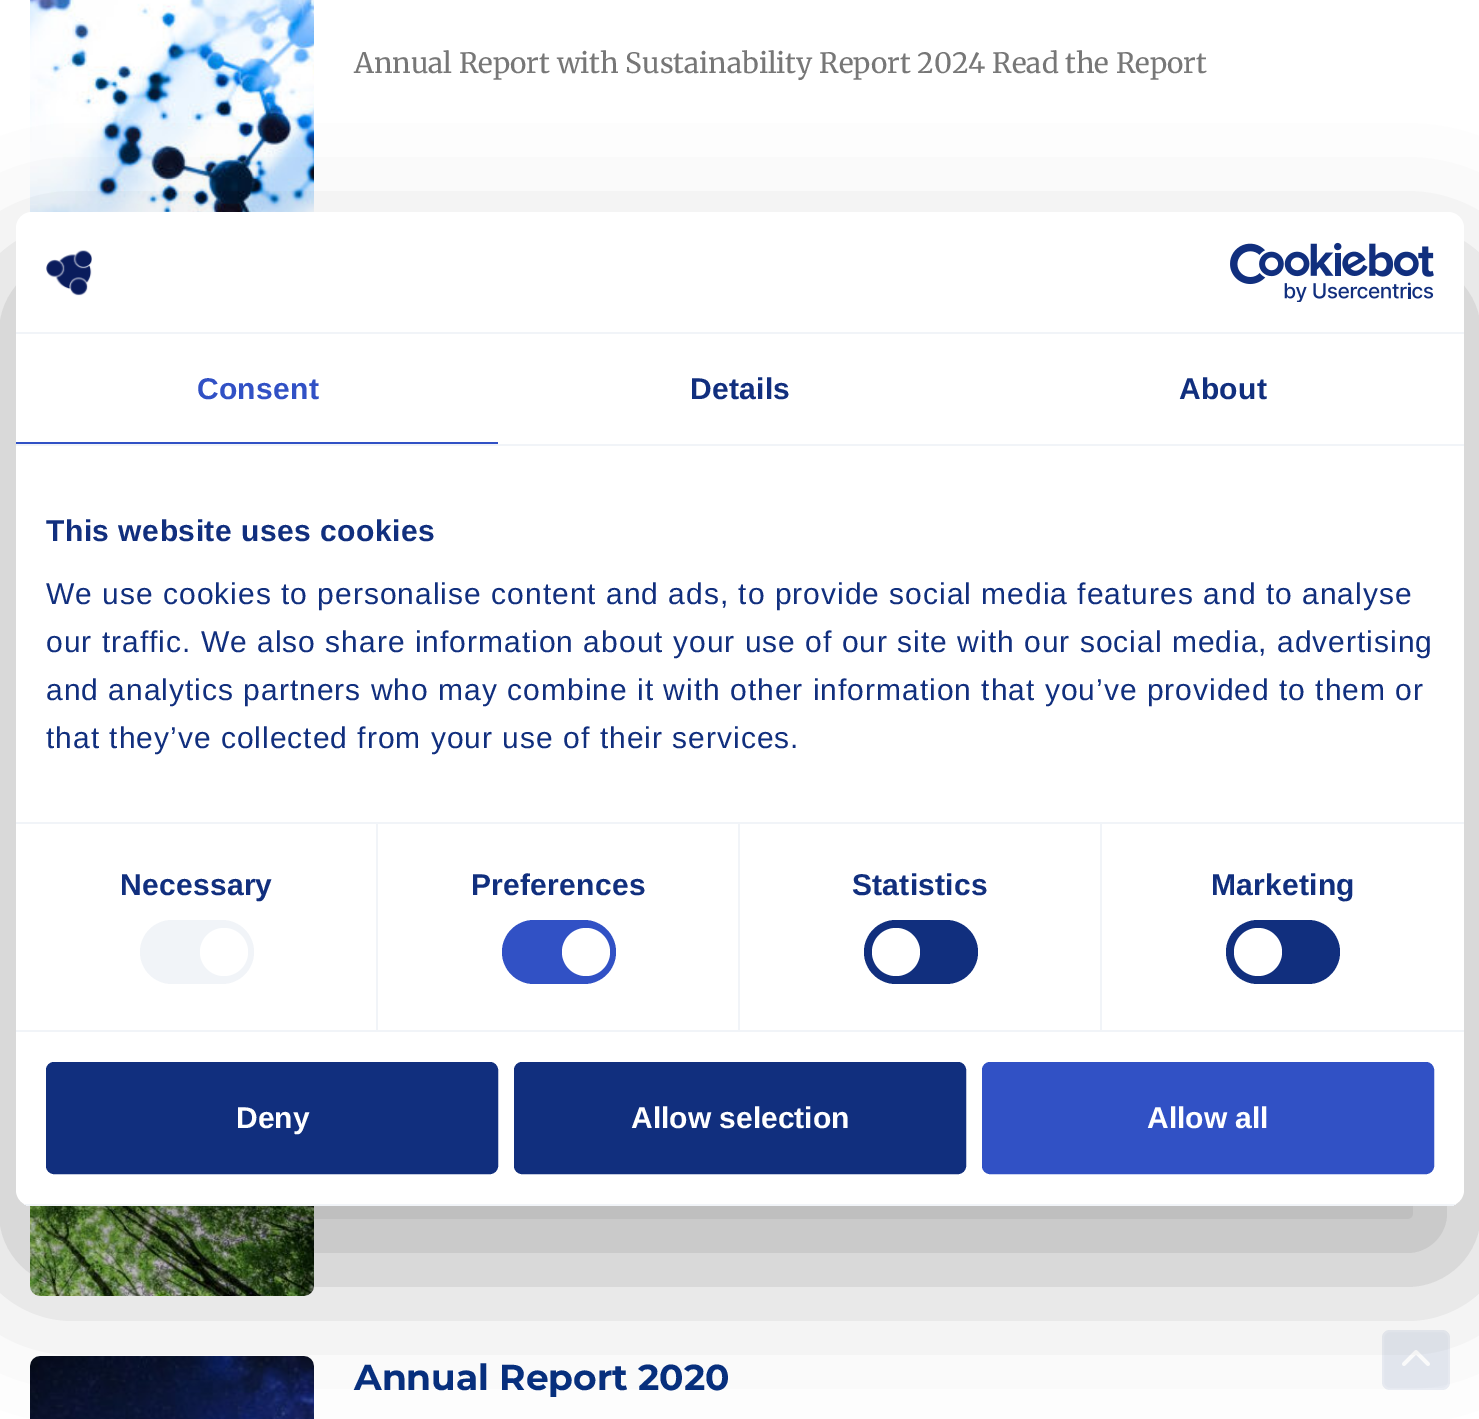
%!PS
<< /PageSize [1479 1419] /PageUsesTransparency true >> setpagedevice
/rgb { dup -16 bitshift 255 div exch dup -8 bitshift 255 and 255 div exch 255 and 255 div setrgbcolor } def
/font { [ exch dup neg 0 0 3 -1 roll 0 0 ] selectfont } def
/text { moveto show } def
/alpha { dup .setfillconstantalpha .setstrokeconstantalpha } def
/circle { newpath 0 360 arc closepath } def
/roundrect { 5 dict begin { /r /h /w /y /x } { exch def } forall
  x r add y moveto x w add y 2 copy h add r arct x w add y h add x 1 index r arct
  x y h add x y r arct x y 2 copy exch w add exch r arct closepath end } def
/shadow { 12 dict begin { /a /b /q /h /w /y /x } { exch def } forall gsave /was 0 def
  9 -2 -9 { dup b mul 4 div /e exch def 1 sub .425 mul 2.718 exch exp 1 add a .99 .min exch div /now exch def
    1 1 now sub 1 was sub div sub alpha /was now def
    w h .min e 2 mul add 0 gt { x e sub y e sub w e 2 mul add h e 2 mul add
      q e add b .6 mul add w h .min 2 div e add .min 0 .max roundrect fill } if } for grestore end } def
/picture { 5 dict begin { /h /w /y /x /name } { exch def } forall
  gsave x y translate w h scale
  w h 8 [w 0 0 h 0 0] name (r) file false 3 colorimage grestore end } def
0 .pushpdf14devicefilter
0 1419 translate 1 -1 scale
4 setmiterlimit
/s1 { /Merriweather-Regular 28 font 16#777777 rgb } def
/s2 { /Montserrat-Bold 36 font 16#07307F rgb } def
/s3 { /LiberationSans-Bold 30 font 16#FFFFFF rgb } def
16#FFFFFF rgb
0 0 1479 1419 rectfill
(pic1.raw) 30 0 284 213 picture
s1
(Annual Report with Sustainability Report 2024 Read the Report) 354 73 text
(pic2.raw) 30 1205 284 91 picture
(pic3.raw) 30 1356 284 63 picture
s2
(Annual Report 2020) 354 1390 text
16#E6EAF2 rgb
1382 1330 68 60 8 roundrect fill
0.2 alpha
16#FFFFFF rgb
2 setlinewidth
1383 1331 66 58 7 roundrect stroke
1 alpha
(pic6.raw) 1402 1350 28 16 picture
16#000000 rgb
16 276 1448 994 16 68 0.3 shadow
16#FFFFFF rgb
16 212 1448 994 16 roundrect fill
16#F1F4F8 rgb
16 332 1448 2 rectfill
(pic4.raw) 46 250 46 46 picture
(pic5.raw) 1230 242 204 60 picture
16 444 1448 2 rectfill
16#3151C5 rgb
16 442 482 2 rectfill
/LiberationSans-Bold 30 font
197 399 moveto 0.25 0 (Consent) ashow
16#112F7E rgb
690 399 moveto 0.25 0 (Details) ashow
1179 399 moveto 0.25 0 (About) ashow
16#F1F4F8 rgb
16 822 1448 2 rectfill
16#112F7E rgb
46 541 moveto 0.5 0 (This website uses cookies) ashow
/LiberationSans-Regular 30 font
46 604 moveto 1 0 (We use cookies to personalise content and ads, to provide social media features and to analyse) ashow
46 652 moveto 1 0 (our traffic. We also share information about your use of our site with our social media, advertising) ashow
46 700 moveto 1 0 (and analytics partners who may combine it with other information that you’ve provided to them or) ashow
46 748 moveto 1 0 (that they’ve collected from your use of their services.) ashow
16#F1F4F8 rgb
16 1030 1448 2 rectfill
376 824 2 206 rectfill
/LiberationSans-Bold 30 font
16#112F7E rgb
120 895 moveto 0.25 0 (Necessary) ashow
16#F1F4F8 rgb
140 920 114 64 32 roundrect fill
16#FFFFFF rgb
224 952 24 circle fill
16#F1F4F8 rgb
738 824 2 206 rectfill
16#112F7E rgb
471 895 moveto 0.25 0 (Preferences) ashow
16#3151C5 rgb
502 920 114 64 32 roundrect fill
16#FFFFFF rgb
586 952 24 circle fill
16#F1F4F8 rgb
1100 824 2 206 rectfill
16#112F7E rgb
852 895 moveto 0.25 0 (Statistics) ashow
864 920 114 64 32 roundrect fill
16#FFFFFF rgb
896 952 24 circle fill
16#112F7E rgb
1211 895 moveto 0.25 0 (Marketing) ashow
1226 920 114 64 32 roundrect fill
16#FFFFFF rgb
1258 952 24 circle fill
gsave
16 212 1448 994 16 roundrect clip newpath
16#F1F4F8 rgb
16 1204 1448 2 rectfill
grestore
16#112F7E rgb
48 1064 448 108 6 roundrect gsave fill grestore
4 setlinewidth
stroke
s3
(Deny) 236 1128 text
16#112F7E rgb
516 1064 448 108 6 roundrect gsave fill grestore
stroke
s3
(Allow selection) 631 1128 text
16#3151C5 rgb
984 1064 448 108 6 roundrect gsave fill grestore
stroke
s3
(Allow all) 1147 1128 text
.poppdf14devicefilter showpage
